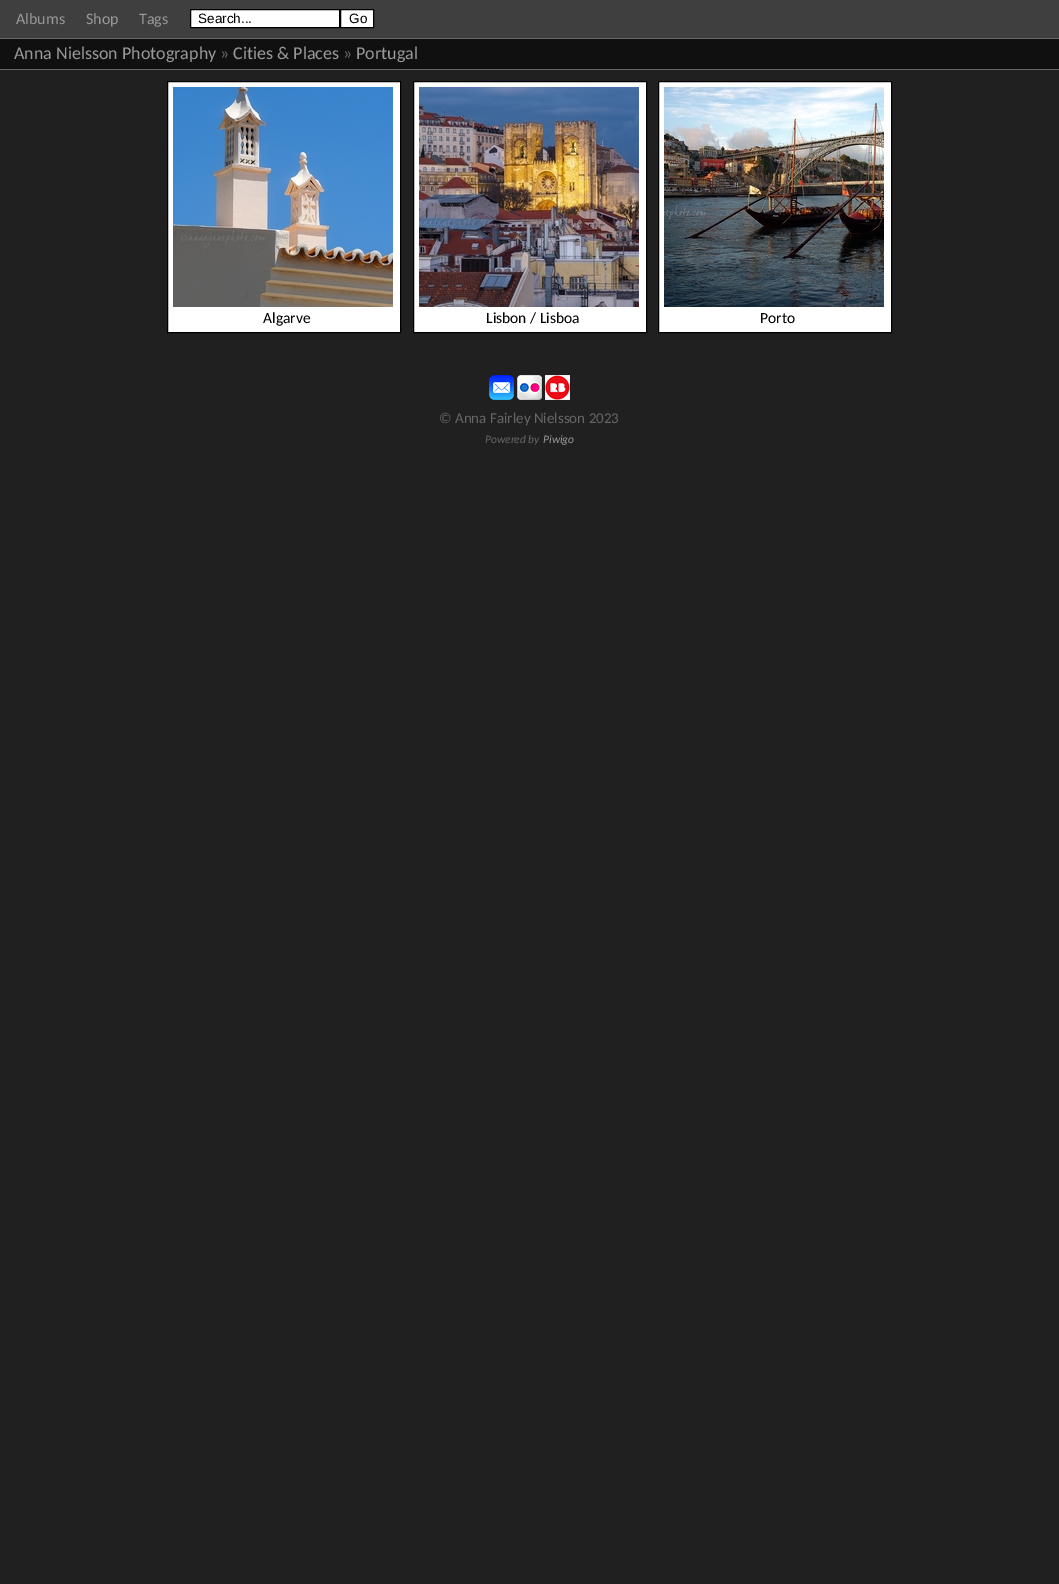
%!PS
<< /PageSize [1059 1584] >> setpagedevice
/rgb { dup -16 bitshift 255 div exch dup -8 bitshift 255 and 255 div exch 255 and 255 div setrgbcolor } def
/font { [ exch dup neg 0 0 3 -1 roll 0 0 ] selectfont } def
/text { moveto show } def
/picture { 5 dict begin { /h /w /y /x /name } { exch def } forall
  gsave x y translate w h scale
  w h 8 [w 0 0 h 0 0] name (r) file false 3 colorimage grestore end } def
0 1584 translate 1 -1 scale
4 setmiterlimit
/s1 { /Carlito-Regular 16 font 16#999999 rgb } def
/s2 { /LiberationSans-Regular 13.5 font 16#000000 rgb } def
/s3 { /Carlito-Regular 18 font 16#999999 rgb } def
/s4 { /Carlito-Regular 18 font 16#666666 rgb } def
/s5 { /Carlito-Regular 15.5 font 16#000000 rgb } def
/s6 { /Carlito-Regular 15 font 16#666666 rgb } def
/s7 { /Carlito-Italic 11.5 font 16#666666 rgb } def
/s8 { /Carlito-Italic 11.5 font 16#999999 rgb } def
16#202020 rgb
0 0 1059 1584 rectfill
16#3F3F3F rgb
0 0 1059 38 rectfill
16#666666 rgb
0 38 1059 1 rectfill
s1
(Albums) 16 24 text
(Shop) 86 24 text
(Tags) 139 24 text
16#FFFFFF rgb
190.5 9.5 moveto 339.5 9.5 lineto 339.5 27.5 lineto 190.5 27.5 lineto closepath gsave fill grestore
16#000000 rgb
stroke
s2
(Search...) 198 23 text
16#FFFFFF rgb
340.5 9.5 moveto 373.5 9.5 lineto 373.5 27.5 lineto 340.5 27.5 lineto closepath gsave fill grestore
16#000000 rgb
stroke
(Go) 349 23 text
16#101010 rgb
0 39 1059 30 rectfill
16#666666 rgb
0 69 1059 1 rectfill
s3
(Anna Nielsson Photography) 14 59 text
s4
(») 220 59 text
s3
(Cities & Places) 233 59 text
s4
(») 343 59 text
s3
(Portugal) 356 59 text
16#FFFFFF rgb
167.5 81.5 moveto 400.5 81.5 lineto 400.5 332.5 lineto 167.5 332.5 lineto closepath gsave fill grestore
16#000000 rgb
stroke
(pic1.raw) 173 87 220 220 picture
s5
(Algarve) 263 323 text
16#FFFFFF rgb
413.5 81.5 moveto 646.5 81.5 lineto 646.5 332.5 lineto 413.5 332.5 lineto closepath gsave fill grestore
16#000000 rgb
stroke
(pic2.raw) 419 87 220 220 picture
(Lisbon / Lisboa) 486 323 text
16#FFFFFF rgb
658.5 81.5 moveto 891.5 81.5 lineto 891.5 332.5 lineto 658.5 332.5 lineto closepath gsave fill grestore
16#000000 rgb
stroke
(pic3.raw) 664 87 220 220 picture
(Porto) 760 323 text
(pic4.raw) 489 375 25 25 picture
(pic5.raw) 517 375 25 25 picture
(pic6.raw) 545 375 25 25 picture
s6
(© Anna Fairley Nielsson 2023) 439 423 text
s7
(Powered by) 485 443 text
s8
(Piwigo) 543 443 text
showpage
